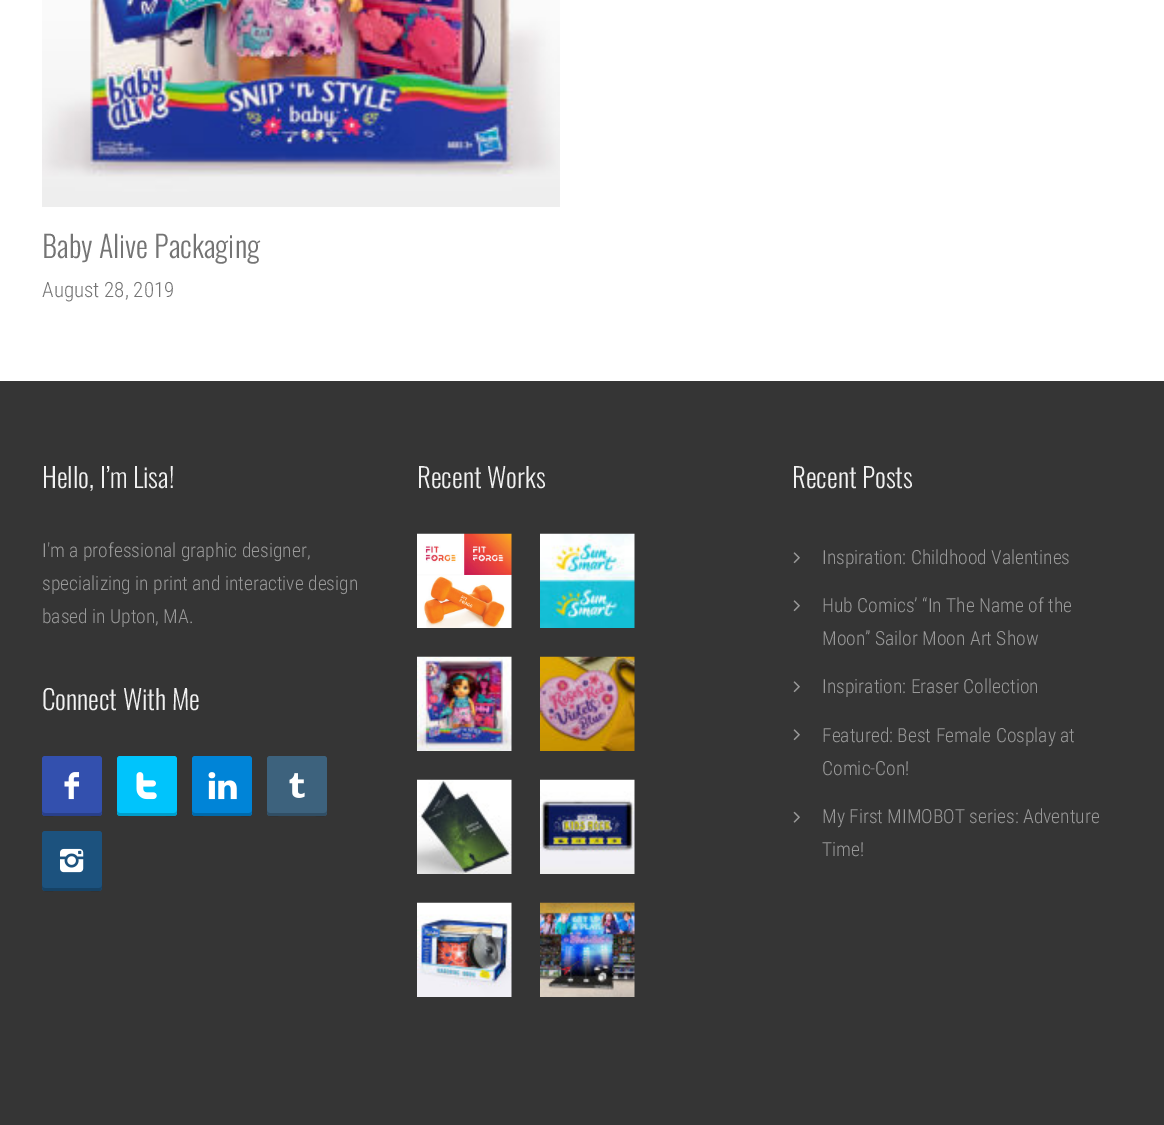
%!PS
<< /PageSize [1164 1125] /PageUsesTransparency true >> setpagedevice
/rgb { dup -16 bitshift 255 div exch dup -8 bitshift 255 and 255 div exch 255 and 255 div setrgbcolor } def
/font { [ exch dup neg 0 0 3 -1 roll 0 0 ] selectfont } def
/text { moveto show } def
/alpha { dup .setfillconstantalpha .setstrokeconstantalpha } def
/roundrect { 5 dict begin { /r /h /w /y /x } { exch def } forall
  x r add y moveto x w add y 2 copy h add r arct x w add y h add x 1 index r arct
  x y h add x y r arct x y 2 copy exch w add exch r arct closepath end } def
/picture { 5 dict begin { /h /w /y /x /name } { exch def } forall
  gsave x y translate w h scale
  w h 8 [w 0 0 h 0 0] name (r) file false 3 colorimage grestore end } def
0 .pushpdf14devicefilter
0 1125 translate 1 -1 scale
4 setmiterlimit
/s1 { /Oswald-Light 30 font 16#747474 rgb } def
/s2 { /RobotoCondensed-Light 21 font 16#747474 rgb } def
/s3 { /Oswald-Light 27 font 16#F1F1F1 rgb } def
/s4 { /RobotoCondensed-Light 19.5 font 16#999999 rgb } def
16#FFFFFF rgb
0 0 1164 1125 rectfill
(pic1.raw) 42 0 518 207 picture
s1
(Baby Alive Packaging) 42 258 text
s2
(August 28, 2019) 42 297 text
16#353535 rgb
0 381 1164 744 rectfill
s3
(Hello, I’m Lisa!) 42 488 text
s4
(I'm a professional graphic designer,) 42 557 text
(specializing in print and interactive design) 42 590 text
(based in Upton, MA.) 42 623 text
s3
(Connect With Me) 42 710 text
16#3350AE rgb
42 756 60 60 3 roundrect fill
0.2 alpha
16#000000 rgb
42 810 moveto 42 818 45 816 54 816 curveto 90 816 lineto 99 816 102 818 102 810 curveto 102 812 101 813 99 813 curveto 45 813 lineto 43 813 42 812 42 810 curveto closepath fill
1 alpha
(pic2.raw) 64 772 16 28 picture
16#00C4FC rgb
117 756 60 60 3 roundrect fill
0.2 alpha
16#000000 rgb
117 810 moveto 117 818 120 816 129 816 curveto 165 816 lineto 174 816 177 818 177 810 curveto 177 812 176 813 174 813 curveto 120 813 lineto 118 813 117 812 117 810 curveto closepath fill
1 alpha
(pic3.raw) 136 772 21 28 picture
16#0084D7 rgb
192 756 60 60 3 roundrect fill
0.2 alpha
16#000000 rgb
192 810 moveto 192 818 195 816 204 816 curveto 240 816 lineto 249 816 252 818 252 810 curveto 252 812 251 813 249 813 curveto 195 813 lineto 193 813 192 812 192 810 curveto closepath fill
1 alpha
(pic4.raw) 208 772 29 28 picture
16#3D627D rgb
267 756 60 60 3 roundrect fill
0.2 alpha
16#000000 rgb
267 810 moveto 267 818 270 816 279 816 curveto 315 816 lineto 324 816 327 818 327 810 curveto 327 812 326 813 324 813 curveto 270 813 lineto 268 813 267 812 267 810 curveto closepath fill
1 alpha
(pic5.raw) 289 773 16 25 picture
16#1C527E rgb
42 831 60 60 3 roundrect fill
0.2 alpha
16#000000 rgb
42 885 moveto 42 893 45 891 54 891 curveto 90 891 lineto 99 891 102 893 102 885 curveto 102 887 101 888 99 888 curveto 45 888 lineto 43 888 42 887 42 885 curveto closepath fill
1 alpha
(pic6.raw) 60 848 24 25 picture
s3
(Recent Works) 417 488 text
(pic7.raw) 417 533 95 95 picture
(pic8.raw) 540 533 95 95 picture
(pic9.raw) 417 656 95 95 picture
(pic10.raw) 540 656 95 95 picture
(pic11.raw) 417 779 95 95 picture
(pic12.raw) 540 779 95 95 picture
(pic13.raw) 417 902 95 95 picture
(pic14.raw) 540 902 95 95 picture
(Recent Posts) 792 488 text
(pic15.raw) 793 552 7 12 picture
s4
(Inspiration: Childhood Valentines) 822 564 text
(pic15.raw) 793 600 7 12 picture
(Hub Comics’ “In The Name of the) 822 612 text
(Moon” Sailor Moon Art Show) 822 645 text
(pic15.raw) 793 681 7 12 picture
(Inspiration: Eraser Collection) 822 693 text
(pic15.raw) 793 729 7 12 picture
(Featured: Best Female Cosplay at) 822 742 text
(Comic-Con!) 822 775 text
(pic16.raw) 793 811 7 12 picture
(My First MIMOBOT series: Adventure) 822 823 text
(Time!) 822 856 text
.poppdf14devicefilter showpage
